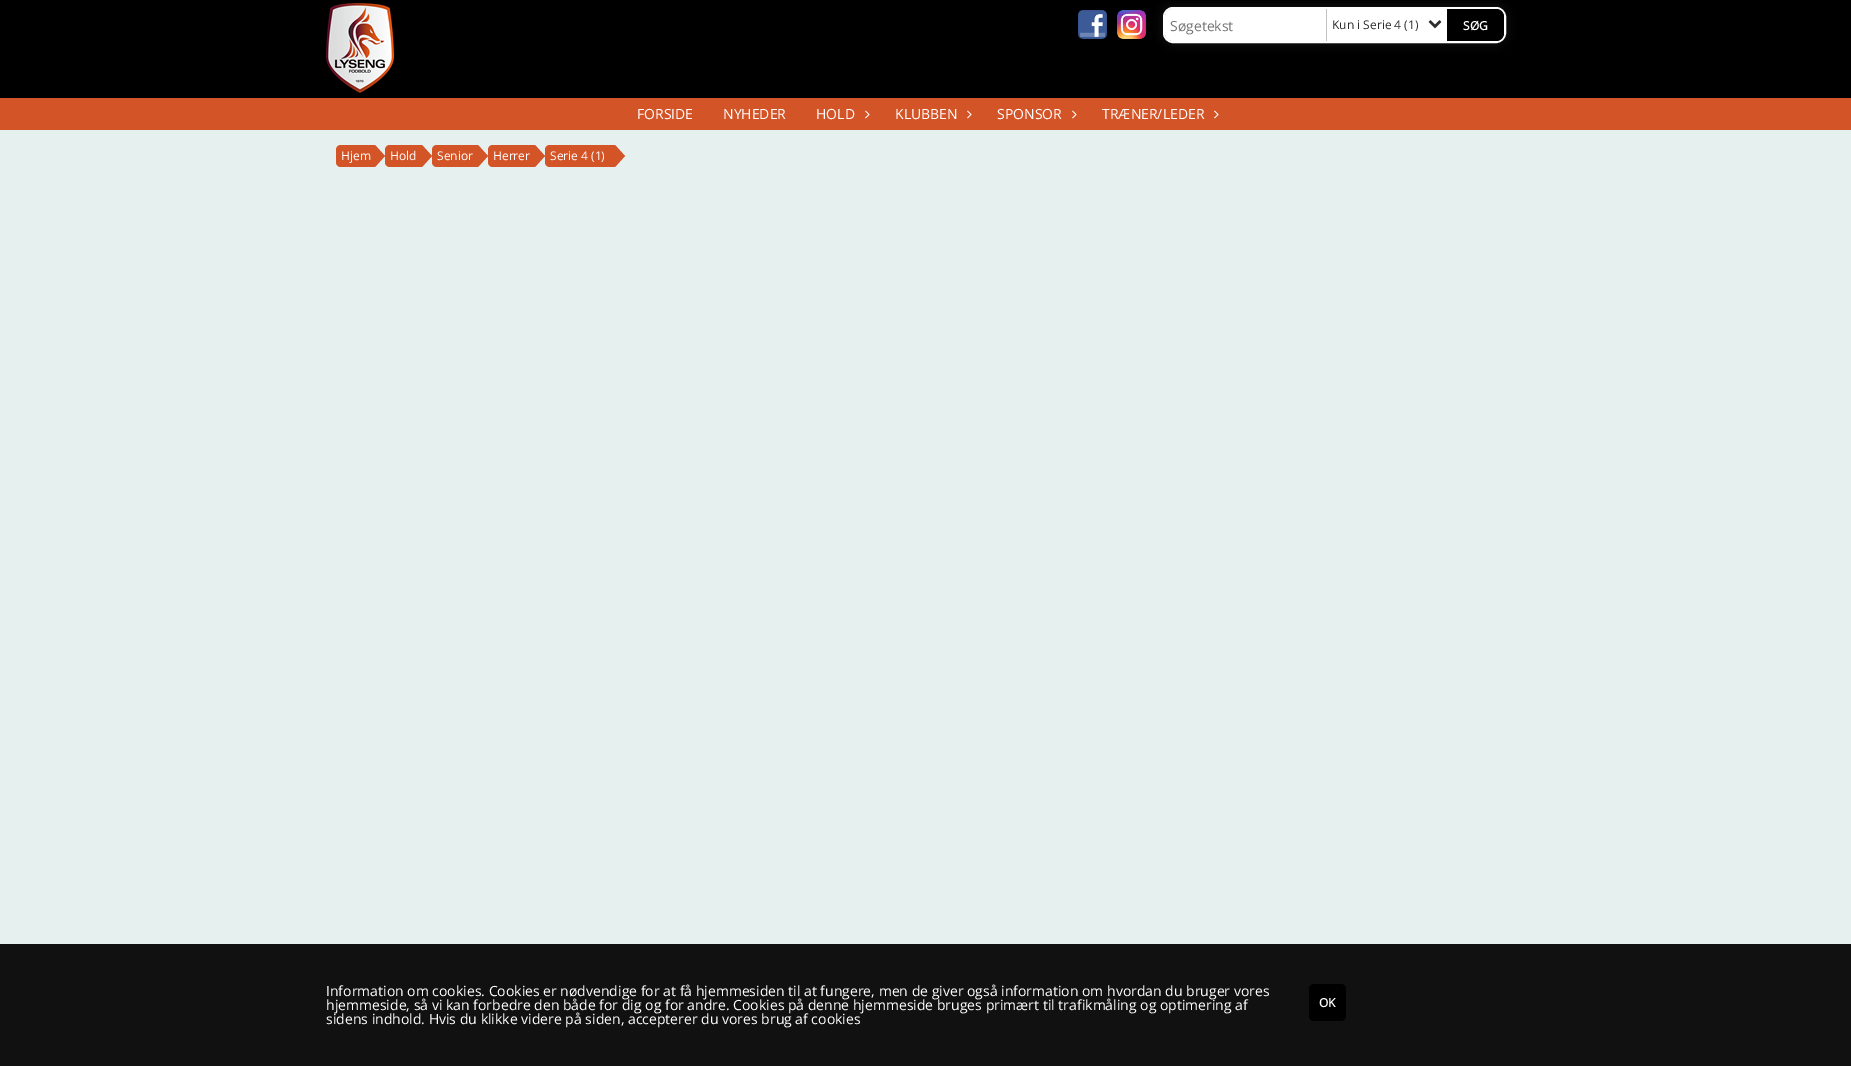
%!PS
<< /PageSize [1851 1066] /PageUsesTransparency true >> setpagedevice
/rgb { dup -16 bitshift 255 div exch dup -8 bitshift 255 and 255 div exch 255 and 255 div setrgbcolor } def
/font { [ exch dup neg 0 0 3 -1 roll 0 0 ] selectfont } def
/text { moveto show } def
/alpha { dup .setfillconstantalpha .setstrokeconstantalpha } def
/roundrect { 5 dict begin { /r /h /w /y /x } { exch def } forall
  x r add y moveto x w add y 2 copy h add r arct x w add y h add x 1 index r arct
  x y h add x y r arct x y 2 copy exch w add exch r arct closepath end } def
/shadow { 12 dict begin { /a /b /q /h /w /y /x } { exch def } forall gsave /was 0 def
  9 -2 -9 { dup b mul 4 div /e exch def 1 sub .425 mul 2.718 exch exp 1 add a .99 .min exch div /now exch def
    1 1 now sub 1 was sub div sub alpha /was now def
    w h .min e 2 mul add 0 gt { x e sub y e sub w e 2 mul add h e 2 mul add
      q e add b .6 mul add w h .min 2 div e add .min 0 .max roundrect fill } if } for grestore end } def
/picture { 5 dict begin { /h /w /y /x /name } { exch def } forall
  gsave x y translate w h scale
  w h 8 [w 0 0 h 0 0] name (r) file false 3 colorimage grestore end } def
0 .pushpdf14devicefilter
0 1066 translate 1 -1 scale
4 setmiterlimit
/s1 { /OpenSans-Regular 14 font 16#757575 rgb } def
/s2 { /OpenSans-Regular 12 font 16#2C2C2C rgb } def
/s3 { /OpenSans-Bold 12 font 16#FFFFFF rgb } def
/s4 { /OpenSans-Regular 14 font 16#FFFFFF rgb } def
/s5 { /OpenSans-Regular 12 font 16#FFFFFF rgb } def
16#E6F0EF rgb
0 0 1851 1066 rectfill
16#000000 rgb
0 0 1851 98 rectfill
(pic1.raw) 326 3 68 90 picture
(pic2.raw) 1078 10 29 29 picture
(pic3.raw) 1117 10 29 29 picture
16#303030 rgb
1163 7 343 36 10 5 0.5 shadow
16#FFFFFF rgb
2 setlinewidth
1164 8 341 34 9 roundrect stroke
1173 9 moveto 1330 9 lineto 1330 41 lineto 1173 41 lineto 1168.5 41 1165 37.5 1165 33 curveto 1165 17 lineto 1165 12.5 1168.5 9 1173 9 curveto closepath fill
s1
(Søgetekst) 1170 31 text
16#FFFFFF rgb
1330 9 117 32 rectfill
16#C2C2C2 rgb
1326 9 1 32 rectfill
s2
(Kun i Serie 4 \(1\)) 1332 29 text
(pic4.raw) 1428 20 14 9 picture
16#000000 rgb
1447 9 moveto 1496 9 lineto 1500.5 9 1504 12.5 1504 17 curveto 1504 33 lineto 1504 37.5 1500.5 41 1496 41 curveto 1447 41 lineto closepath fill
s3
(SØG) 1463 30 text
16#D35427 rgb
0 98 1851 32 rectfill
s4
(FORSIDE) 637 119 text
(NYHEDER) 723 119 text
(HOLD) 816 119 text
(pic5.raw) 865 110 5 9 picture
(KLUBBEN) 895 119 text
(pic5.raw) 967 110 5 9 picture
(SPONSOR) 997 119 text
(pic5.raw) 1072 110 5 9 picture
(TRÆNER/LEDER) 1102 119 text
(pic5.raw) 1214 110 5 9 picture
16#D35427 rgb
341 145 moveto 375 145 lineto 375 167 lineto 341 167 lineto 338 167 336 165 336 162 curveto 336 150 lineto 336 147 338 145 341 145 curveto closepath fill
s5
(Hjem) 341 160 text
16#D35427 rgb
390 145 moveto 422 145 lineto 422 167 lineto 390 167 lineto 387 167 385 165 385 162 curveto 385 150 lineto 385 147 387 145 390 145 curveto closepath fill
s5
(Hold) 390 160 text
16#D35427 rgb
375 167 moveto 375 145 lineto 385 156 lineto closepath 422 167 moveto 422 145 lineto 432 156 lineto closepath fill
437 145 moveto 478 145 lineto 478 167 lineto 437 167 lineto 434 167 432 165 432 162 curveto 432 150 lineto 432 147 434 145 437 145 curveto closepath fill
s5
(Senior) 437 160 text
16#D35427 rgb
478 167 moveto 478 145 lineto 488 156 lineto closepath fill
493 145 moveto 535 145 lineto 535 167 lineto 493 167 lineto 490 167 488 165 488 162 curveto 488 150 lineto 488 147 490 145 493 145 curveto closepath fill
s5
(Herrer) 493 160 text
16#D35427 rgb
535 167 moveto 535 145 lineto 545 156 lineto closepath fill
550 145 moveto 615 145 lineto 615 167 lineto 550 167 lineto 547 167 545 165 545 162 curveto 545 150 lineto 545 147 547 145 550 145 curveto closepath fill
s5
(Serie 4 \(1\)) 550 160 text
16#D35427 rgb
615 167 moveto 615 145 lineto 625 156 lineto closepath fill
16#111111 rgb
0 944 1851 122 rectfill
s4
(Information om cookies. Cookies er nødvendige for at få hjemmesiden til at fungere, men de giver også information om hvordan du bruger vores) 326 996 text
(hjemmeside, så vi kan forbedre den både for dig og for andre. Cookies på denne hjemmeside bruges primært til trafikmåling og optimering af) 326 1010 text
(sidens indhold. Hvis du klikke videre på siden, accepterer du vores brug af cookies) 326 1024 text
16#000000 rgb
1309 984 37 37 5 roundrect fill
s3
(OK) 1319 1007 text
.poppdf14devicefilter showpage
